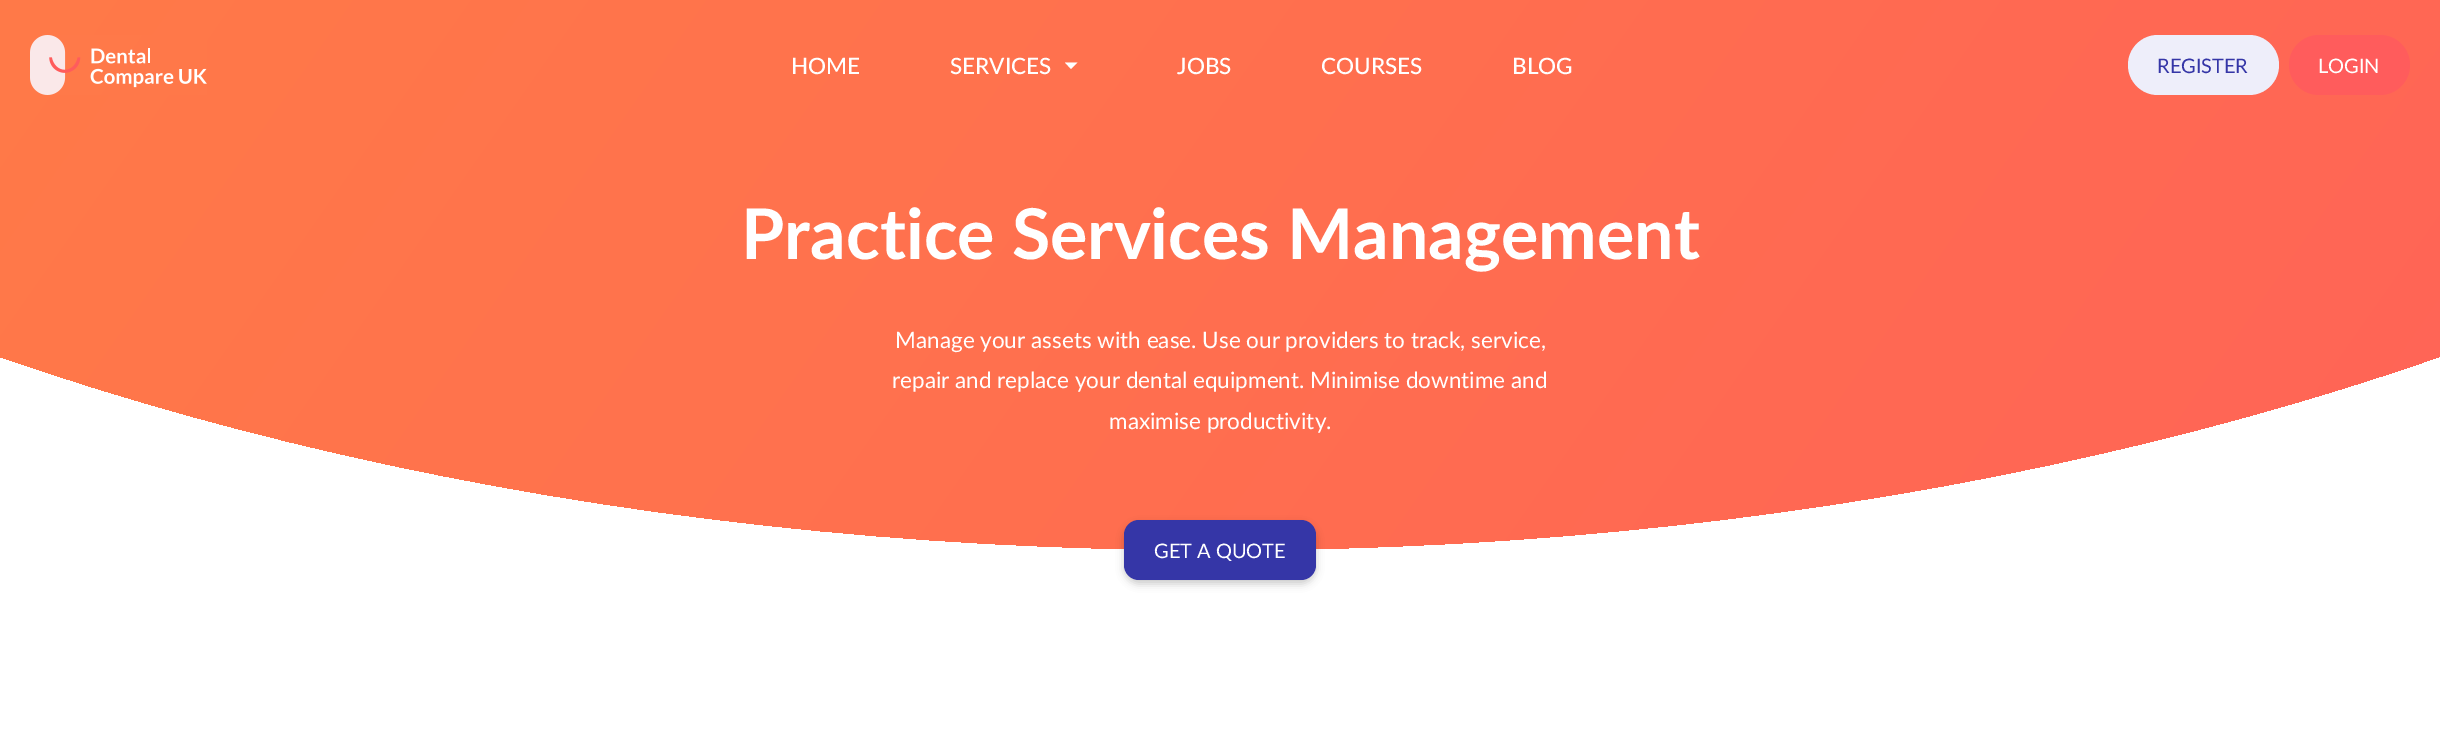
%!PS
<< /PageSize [2440 734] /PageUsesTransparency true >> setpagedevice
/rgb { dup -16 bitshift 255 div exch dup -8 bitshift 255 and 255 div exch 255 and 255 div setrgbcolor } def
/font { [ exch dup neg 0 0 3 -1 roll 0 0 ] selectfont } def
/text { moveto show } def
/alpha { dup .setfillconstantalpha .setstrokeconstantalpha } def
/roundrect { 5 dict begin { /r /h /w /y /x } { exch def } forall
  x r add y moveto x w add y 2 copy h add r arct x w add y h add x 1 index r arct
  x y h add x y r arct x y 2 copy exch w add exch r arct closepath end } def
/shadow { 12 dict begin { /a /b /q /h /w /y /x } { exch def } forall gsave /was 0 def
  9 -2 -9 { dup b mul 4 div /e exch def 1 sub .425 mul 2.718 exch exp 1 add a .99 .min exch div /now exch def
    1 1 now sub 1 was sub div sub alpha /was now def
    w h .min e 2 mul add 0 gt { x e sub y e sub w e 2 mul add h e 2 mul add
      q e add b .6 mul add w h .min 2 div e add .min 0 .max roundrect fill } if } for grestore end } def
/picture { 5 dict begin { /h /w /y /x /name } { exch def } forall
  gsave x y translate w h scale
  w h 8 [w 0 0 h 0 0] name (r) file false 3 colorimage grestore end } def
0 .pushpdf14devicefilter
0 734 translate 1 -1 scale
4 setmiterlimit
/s1 { /Lato-Medium 22.5 font 16#FFFFFF rgb } def
/s2 { /Lato-Regular 20 font 16#3536A7 rgb } def
/s3 { /Lato-Regular 20 font 16#FFFFFF rgb } def
/s4 { /Lato-Bold 70 font 16#FFFFFF rgb } def
/s5 { /Lato-Regular 22.5 font 16#FFFFFF rgb } def
16#FFFFFF rgb
0 0 2440 734 rectfill
gsave -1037 -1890 moveto 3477 -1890 lineto 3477 -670 lineto 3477 4 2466 550 1220 550 curveto -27 550 -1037 4 -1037 -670 curveto closepath clip newpath
<< /ShadingType 2 /ColorSpace /DeviceRGB /Coords [-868 -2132 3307 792] /Extend [true true] /Function << /FunctionType 2 /Domain [0 1] /C0 [1 0.549 0.235] /C1 [1 0.361 0.361] /N 1 >> >> shfill grestore
(pic1.raw) 30 35 177 60 picture
s1
(HOME) 791 74 text
(SERVICES) 950 74 text
1065 62.5 moveto 1071 69 lineto 1077.5 62.5 lineto closepath fill
(JOBS) 1177 74 text
(COURSES) 1321 74 text
(BLOG) 1512 74 text
16#EEEEFA rgb
2128 35 151 60 30 roundrect fill
s2
(REGISTER) 2157 73 text
16#FF5C5C rgb
2289 35 121 60 30 roundrect fill
s3
(LOGIN) 2318 73 text
s4
(Practice Services Management) 741 259 text
s5
(Manage your assets with ease. Use our providers to track, service,) 895 348 text
(repair and replace your dental equipment. Minimise downtime and) 892 388 text
(maximise productivity.) 1109 429 text
16#000000 rgb
1124 524 192 60 15 4 0.2 shadow
16#3536A7 rgb
1124 520 192 60 15 roundrect fill
s3
(GET A QUOTE) 1154 558 text
.poppdf14devicefilter showpage
